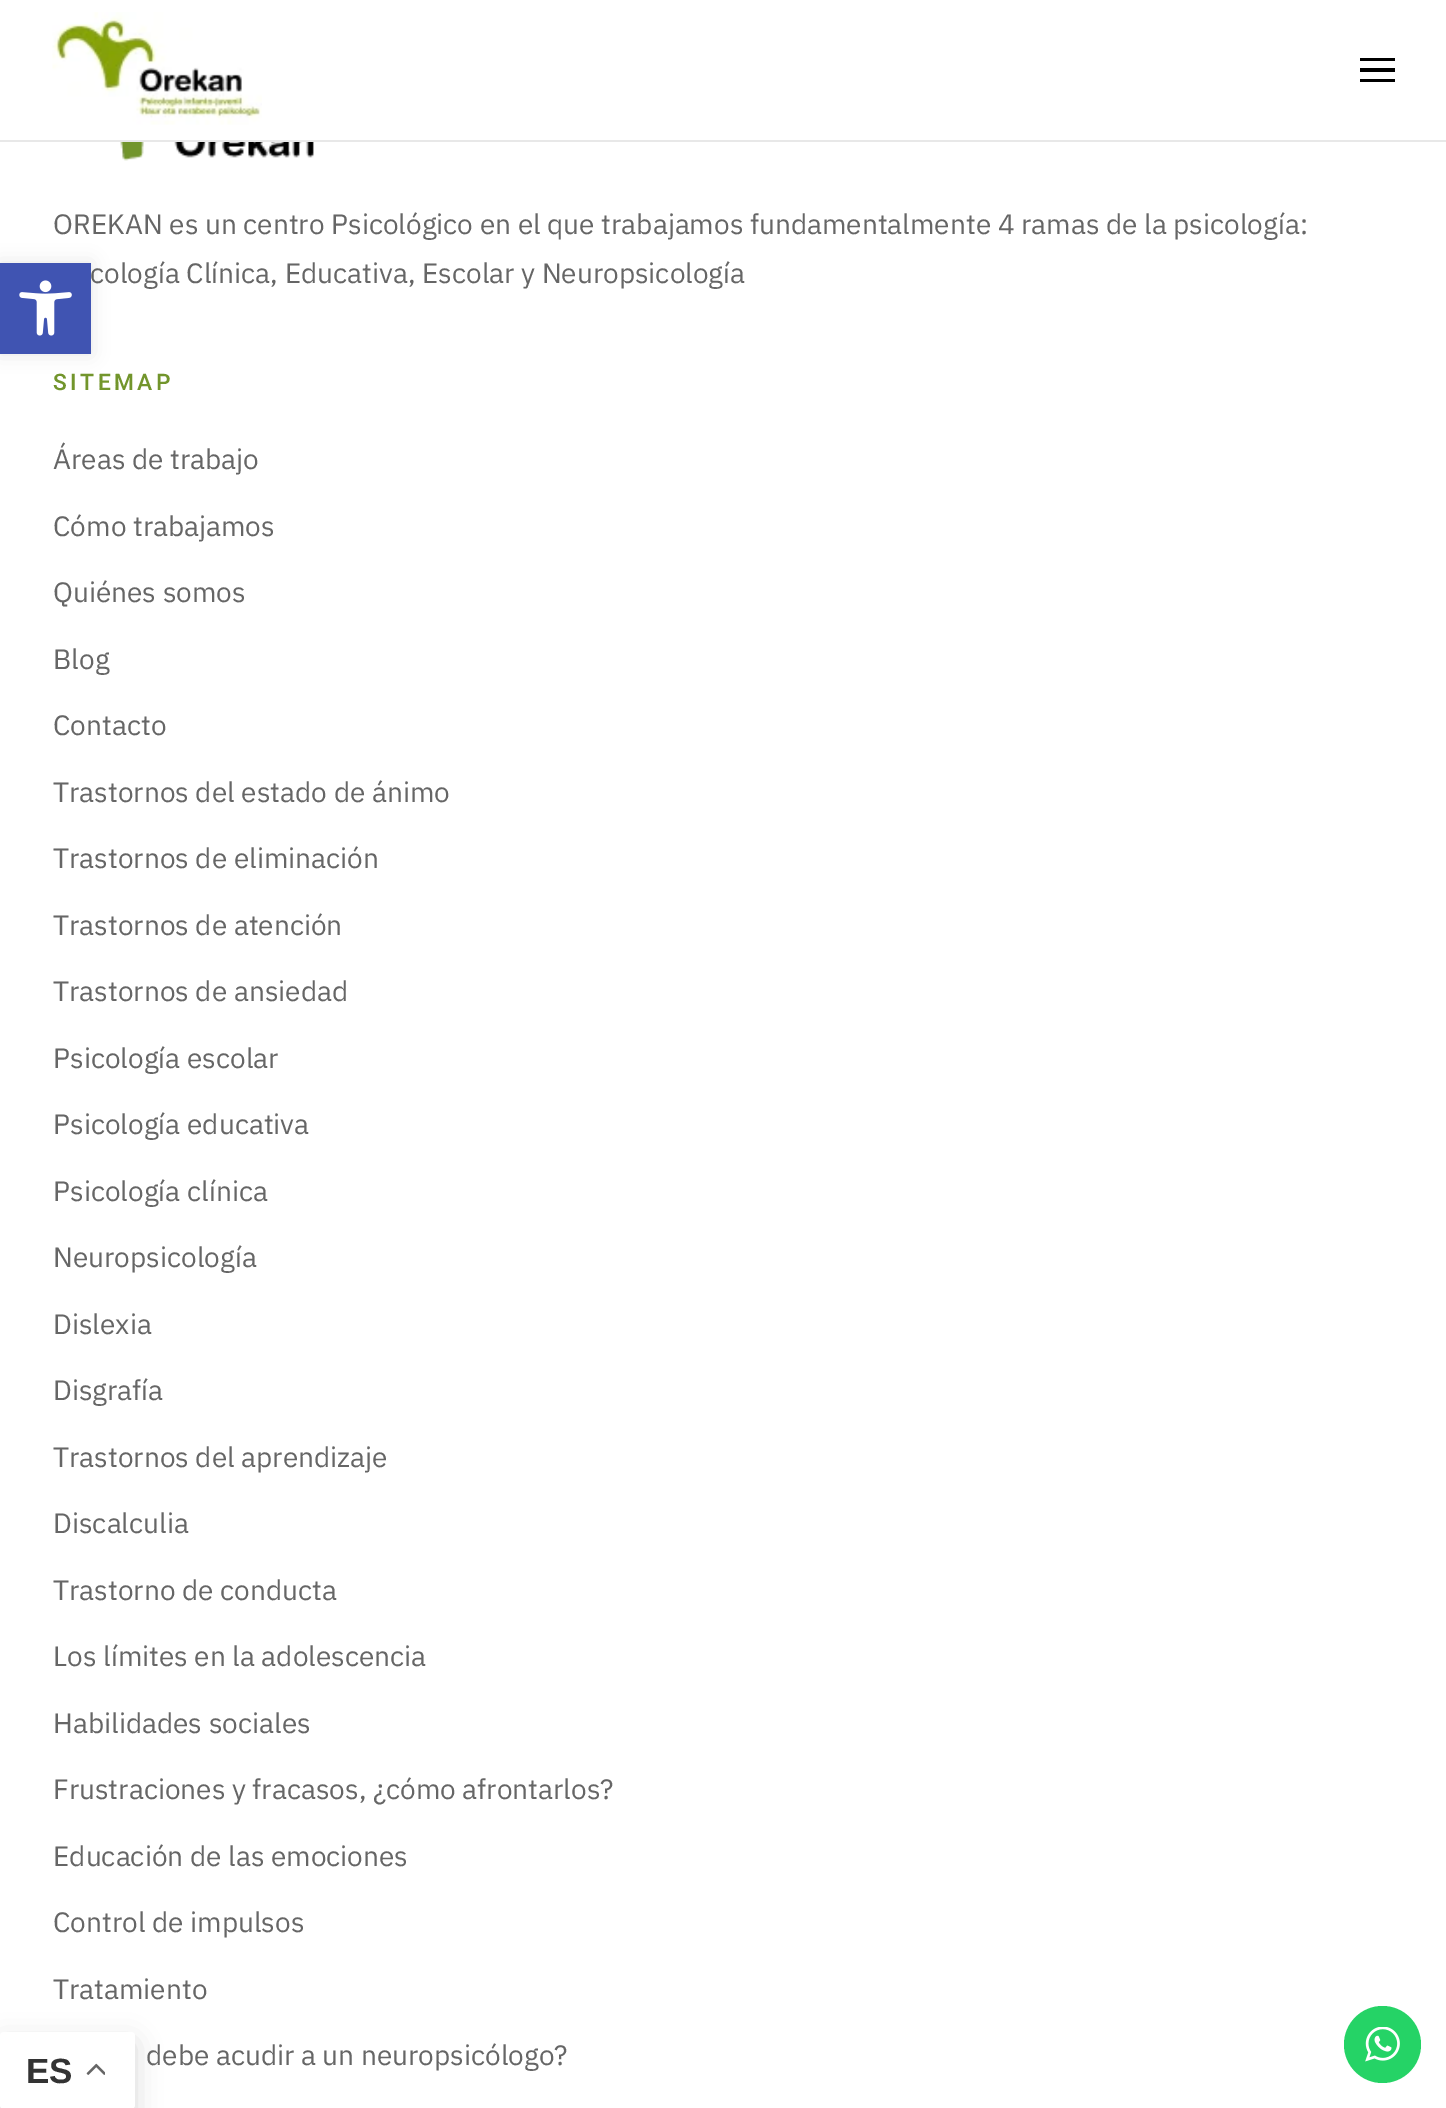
%!PS
<< /PageSize [1446 2108] /PageUsesTransparency true >> setpagedevice
/rgb { dup -16 bitshift 255 div exch dup -8 bitshift 255 and 255 div exch 255 and 255 div setrgbcolor } def
/font { [ exch dup neg 0 0 3 -1 roll 0 0 ] selectfont } def
/text { moveto show } def
/alpha { dup .setfillconstantalpha .setstrokeconstantalpha } def
/circle { newpath 0 360 arc closepath } def
/roundrect { 5 dict begin { /r /h /w /y /x } { exch def } forall
  x r add y moveto x w add y 2 copy h add r arct x w add y h add x 1 index r arct
  x y h add x y r arct x y 2 copy exch w add exch r arct closepath end } def
/shadow { 12 dict begin { /a /b /q /h /w /y /x } { exch def } forall gsave /was 0 def
  9 -2 -9 { dup b mul 4 div /e exch def 1 sub .425 mul 2.718 exch exp 1 add a .99 .min exch div /now exch def
    1 1 now sub 1 was sub div sub alpha /was now def
    w h .min e 2 mul add 0 gt { x e sub y e sub w e 2 mul add h e 2 mul add
      q e add b .6 mul add w h .min 2 div e add .min 0 .max roundrect fill } if } for grestore end } def
/picture { 5 dict begin { /h /w /y /x /name } { exch def } forall
  gsave x y translate w h scale
  w h 8 [w 0 0 h 0 0] name (r) file false 3 colorimage grestore end } def
0 .pushpdf14devicefilter
0 2108 translate 1 -1 scale
4 setmiterlimit
/s1 { /LiberationSans-Bold 35 font 16#333333 rgb } def
/s2 { /IBMPlexSans-Regular 28 font 16#666666 rgb } def
16#FFFFFF rgb
0 0 1446 2108 rectfill
16#E8E8E8 rgb
0 140 1446 2 rectfill
16#000000 rgb
1360 58 35 3 rectfill
1360 68 35 4 rectfill
1360 79 35 3 rectfill
(pic1.raw) 52 12 210 113 picture
0 2041 135 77 4 13 0.15 shadow
16#FFFFFF rgb
0 2032 135 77 4 roundrect fill
s1
(ES) 26 2083 text
(pic2.raw) 86 2063 19 12 picture
(pic3.raw) 120 142 194 19 picture
s2
(OREKAN es un centro Psicológico en el que trabajamos fundamentalmente 4 ramas de la psicología:) 53 234 text
(cología Clínica, Educativa, Escolar y Neuropsicología) 90 283 text
/Heebo-Medium 22.75 font
16#72952C rgb
53 390 moveto 3.5 0 (SITEMAP) ashow
s2
(Áreas de trabajo) 53 469 text
(Cómo trabajamos) 53 536 text
(Quiénes somos) 53 602 text
(Blog) 53 669 text
(Contacto) 53 735 text
(Trastornos del estado de ánimo) 53 802 text
(Trastornos de eliminación) 53 868 text
(Trastornos de atención) 53 935 text
(Trastornos de ansiedad) 53 1001 text
(Psicología escolar) 53 1068 text
(Psicología educativa) 53 1134 text
(Psicología clínica) 53 1201 text
(Neuropsicología) 53 1267 text
(Dislexia) 53 1334 text
(Disgrafía) 53 1400 text
(Trastornos del aprendizaje) 53 1467 text
(Discalculia) 53 1533 text
(Trastorno de conducta) 53 1600 text
(Los límites en la adolescencia) 53 1666 text
(Habilidades sociales) 53 1733 text
(Frustraciones y fracasos, ¿cómo afrontarlos?) 53 1799 text
(Educación de las emociones) 53 1866 text
(Control de impulsos) 53 1932 text
(Tratamiento) 53 1999 text
(debe acudir a un neuropsicólogo?) 146 2065 text
16#000000 rgb
0 263 91 91 0 9 0.1 shadow
16#4054B2 rgb
0 263 91 91 rectfill
(pic4.raw) 19 280 53 56 picture
16#25D366 rgb
1382.5 2044.5 38.5 circle fill
(pic5.raw) 1365 2027 35 35 picture
.poppdf14devicefilter showpage
